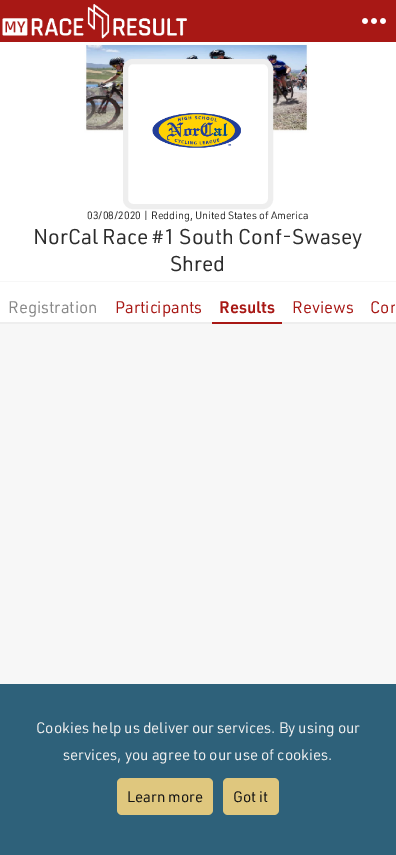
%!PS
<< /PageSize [396 855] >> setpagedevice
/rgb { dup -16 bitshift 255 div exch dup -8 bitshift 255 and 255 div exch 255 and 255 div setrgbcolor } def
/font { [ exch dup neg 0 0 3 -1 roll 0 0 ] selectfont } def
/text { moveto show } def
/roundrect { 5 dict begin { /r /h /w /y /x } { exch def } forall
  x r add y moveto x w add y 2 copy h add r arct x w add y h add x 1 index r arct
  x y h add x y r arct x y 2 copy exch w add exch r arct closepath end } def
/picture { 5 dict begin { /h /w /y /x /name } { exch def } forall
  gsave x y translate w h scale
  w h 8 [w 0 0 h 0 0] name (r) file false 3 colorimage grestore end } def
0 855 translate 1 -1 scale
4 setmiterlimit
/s1 { /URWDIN-Regular 10.5 font 16#2C2C2C rgb } def
/s2 { /URWDIN-Regular 21 font 16#2C2C2C rgb } def
/s3 { /URWDIN-Regular 16.5 font 16#888888 rgb } def
/s4 { /URWDIN-Regular 16.5 font 16#A81815 rgb } def
/s5 { /URWDIN-SemiBold 16.5 font 16#A81815 rgb } def
/s6 { /URWDIN-Regular 15 font 16#EFEFEF rgb } def
/s7 { /URWDIN-Regular 15 font 16#141414 rgb } def
16#F7F7F7 rgb
0 0 396 855 rectfill
16#A81815 rgb
0 0 396 42 rectfill
(pic1.raw) 2 4 185 35 picture
(pic2.raw) 362 18 24 6 picture
(pic3.raw) 0 42 396 92 picture
16#FFFFFF rgb
0 134 396 147 rectfill
125.5 61.5 145 145 7.5 roundrect gsave fill grestore
16#EEEEEE rgb
5 setlinewidth
stroke
(pic4.raw) 152 112 89 36 picture
s1
(03/08/2020 | Redding, United States of America) 87 219 text
s2
(NorCal Race #1 South Conf-Swasey) 33 244 text
(Shred) 170 271 text
16#FFFFFF rgb
0 282 396 40 rectfill
16#EEEEEE rgb
0 322 396 2 rectfill
s3
(Registration) 8 313 text
s4
(Participants) 115 313 text
212 322 70 2 rectfill
s5
(Results) 219 313 text
s4
(Reviews) 292 313 text
gsave
1 282 394 42 rectclip
(Con) 370 313 text
grestore
16#2E617A rgb
0 684 396 171 rectfill
s6
(Cookies help us deliver our services. By using our) 36 733 text
(services, you agree to our use of cookies.) 63 760 text
16#DFC77E rgb
117 778 96 37 5 roundrect fill
s7
(Learn more) 127 802 text
16#DFC77E rgb
223 778 56 37 5 roundrect fill
s7
(Got it) 233 802 text
showpage
